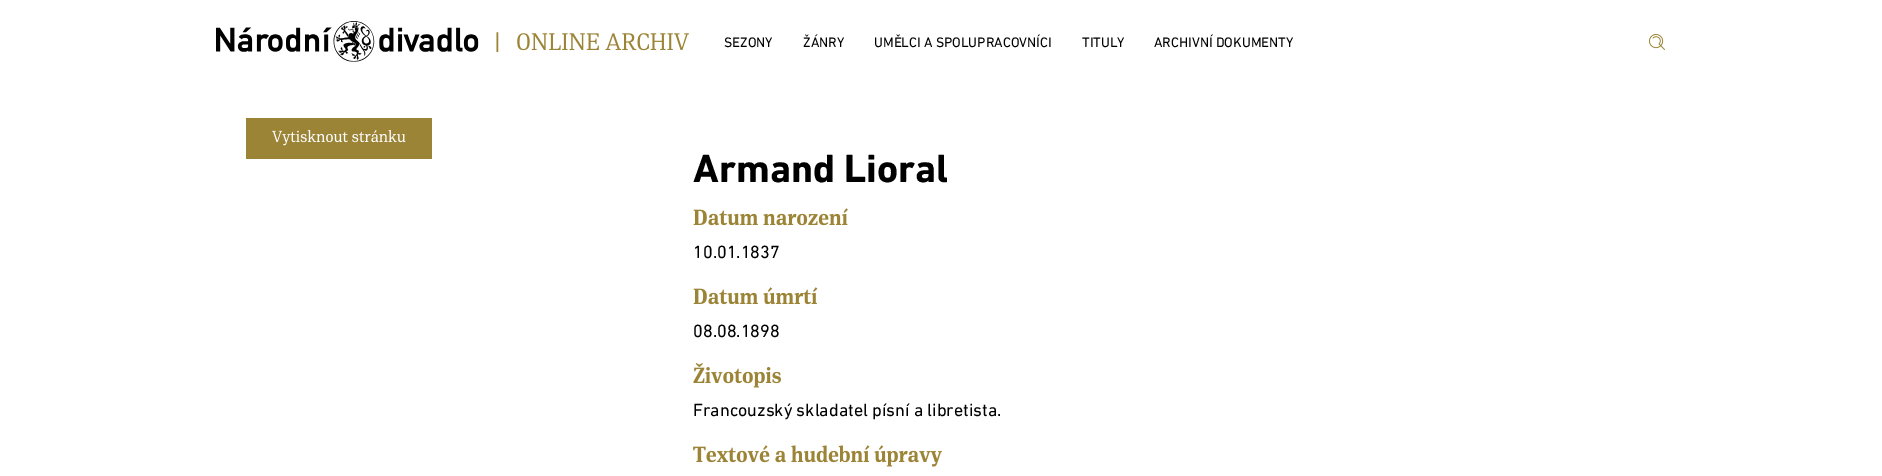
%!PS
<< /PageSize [1882 476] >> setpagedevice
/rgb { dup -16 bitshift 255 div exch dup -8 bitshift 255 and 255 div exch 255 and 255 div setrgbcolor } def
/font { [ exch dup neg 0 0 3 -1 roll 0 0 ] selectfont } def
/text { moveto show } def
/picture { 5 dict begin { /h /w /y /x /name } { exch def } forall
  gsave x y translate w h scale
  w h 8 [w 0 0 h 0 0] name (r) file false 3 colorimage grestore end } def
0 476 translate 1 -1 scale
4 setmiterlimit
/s1 { /DINNext-Regular 24 font 16#9C8437 rgb } def
/s2 { /DINNext-Regular 14 font 16#000000 rgb } def
/s3 { /DINNext-Bold 40 font 16#000000 rgb } def
/s4 { /DINNext-Regular 18 font 16#000000 rgb } def
16#FFFFFF rgb
0 0 1882 476 rectfill
(pic1.raw) 216 21 263 41 picture
s1
(|) 494 50 text
(pic2.raw) 517 33 172 18 picture
s2
(SEZONY) 724 47 text
(ŽÁNRY) 803 47 text
(UMĚLCI A SPOLUPRACOVNÍCI) 874 47 text
(TITULY) 1082 47 text
(ARCHIVNÍ DOKUMENTY) 1154 47 text
(pic3.raw) 1649 34 16 16 picture
16#9C8437 rgb
246 118 186 41 rectfill
(pic4.raw) 272 130 134 16 picture
s3
(Armand Lioral) 693 182 text
(pic5.raw) 693 208 155 18 picture
s4
(10.01.1837) 693 258 text
(pic6.raw) 693 287 125 18 picture
(08.08.1898) 693 337 text
(pic7.raw) 693 363 88 25 picture
(Francouzský skladatel písní a libretista.) 693 416 text
(pic8.raw) 693 445 249 22 picture
showpage
